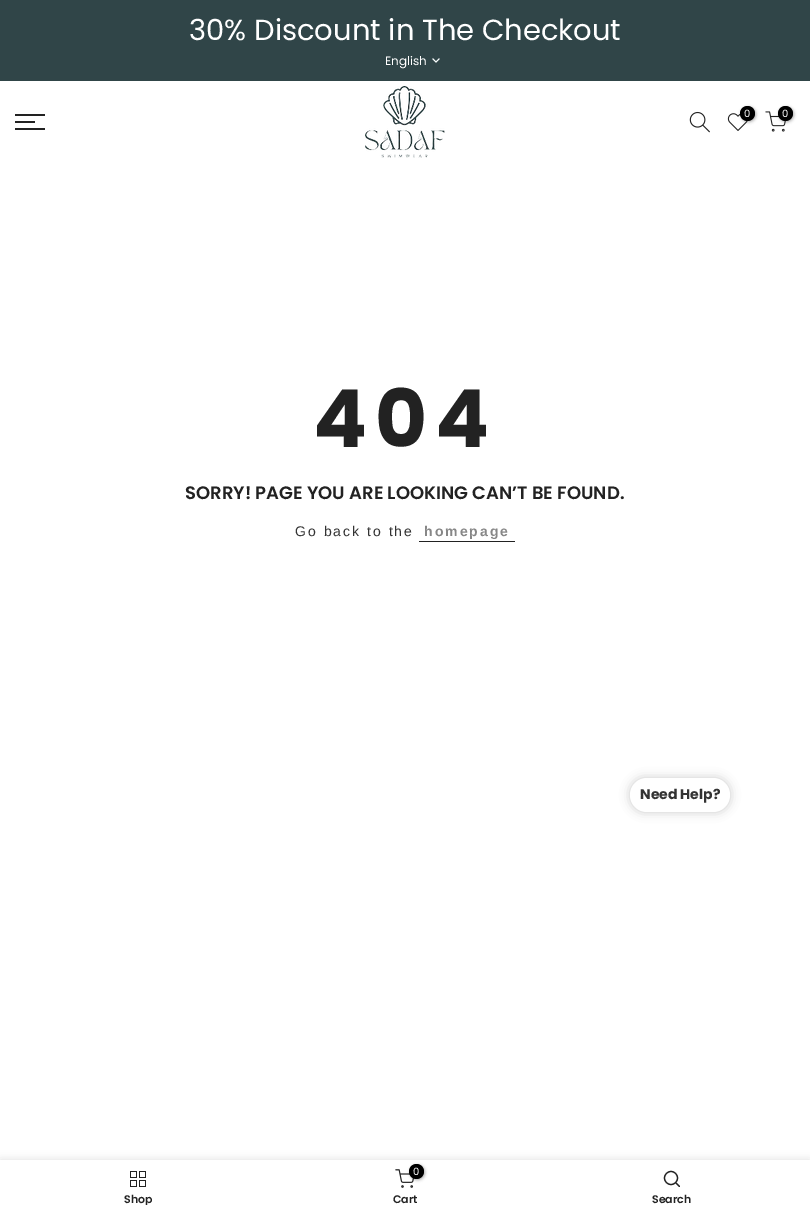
%!PS
<< /PageSize [810 1215] /PageUsesTransparency true >> setpagedevice
/rgb { dup -16 bitshift 255 div exch dup -8 bitshift 255 and 255 div exch 255 and 255 div setrgbcolor } def
/font { [ exch dup neg 0 0 3 -1 roll 0 0 ] selectfont } def
/text { moveto show } def
/alpha { dup .setfillconstantalpha .setstrokeconstantalpha } def
/circle { newpath 0 360 arc closepath } def
/roundrect { 5 dict begin { /r /h /w /y /x } { exch def } forall
  x r add y moveto x w add y 2 copy h add r arct x w add y h add x 1 index r arct
  x y h add x y r arct x y 2 copy exch w add exch r arct closepath end } def
/shadow { 12 dict begin { /a /b /q /h /w /y /x } { exch def } forall gsave /was 0 def
  9 -2 -9 { dup b mul 4 div /e exch def 1 sub .425 mul 2.718 exch exp 1 add a .99 .min exch div /now exch def
    1 1 now sub 1 was sub div sub alpha /was now def
    w h .min e 2 mul add 0 gt { x e sub y e sub w e 2 mul add h e 2 mul add
      q e add b .6 mul add w h .min 2 div e add .min 0 .max roundrect fill } if } for grestore end } def
/picture { 5 dict begin { /h /w /y /x /name } { exch def } forall
  gsave x y translate w h scale
  w h 8 [w 0 0 h 0 0] name (r) file false 3 colorimage grestore end } def
0 .pushpdf14devicefilter
0 1215 translate 1 -1 scale
4 setmiterlimit
/s1 { /Poppins-Regular 29 font 16#FFFFFF rgb } def
/s2 { /Poppins-Regular 12 font 16#FFFFFF rgb } def
/s3 { /Poppins-Regular 10 font 16#FFFFFF rgb } def
/s4 { /Poppins-SemiBold 18 font 16#222222 rgb } def
/s5 { /Poppins-Bold 14 font 16#333333 rgb } def
/s6 { /Poppins-SemiBold 11 font 16#222222 rgb } def
16#FFFFFF rgb
0 0 810 1215 rectfill
16#304548 rgb
0 0 810 81 rectfill
s1
(30% Discount in The Checkout) 189 40 text
s2
(English) 385 65 text
16#FBFFFF rgb
0.8 setlinewidth
2 setlinecap
439 59 moveto 436 62 lineto 433 59 lineto stroke
(pic1.raw) 365 86 80 72 picture
(pic2.raw) 689 111 21 22 picture
(pic3.raw) 727 113 21 18 picture
16#000000 rgb
741 107 15 15 7.5 1.5 0.3 shadow
747.5 113.5 7.5 circle fill
s3
(0) 744 117 text
(pic4.raw) 765 111 21 21 picture
16#000000 rgb
779 107 15 15 7.5 1.5 0.3 shadow
785.5 113.5 7.5 circle fill
s3
(0) 782 117 text
16#222222 rgb
15 114 30 2 rectfill
15 121 20 2 rectfill
15 128 30 2 rectfill
/Poppins-Bold 80 font
313 447 moveto 8 0 (404) ashow
s4
(SORRY! PAGE YOU ARE LOOKING CAN’T BE FOUND.) 185 499 text
/LiberationSans-Regular 14 font
16#333333 rgb
295 536 moveto 2 0 (Go back to the) ashow
/LiberationSans-Bold 14 font
16#878787 rgb
424 536 moveto 2 0 (homepage) ashow
16#222222 rgb
419 541 96 1 rectfill
16#000000 rgb
630 778 100 34 17 5 0.2 shadow
16#FFFFFF rgb
630 778 100 34 17 roundrect fill
s5
(Need Help?) 640 799 text
16#000000 rgb
0 1160 810 55 0 4.5 0.12 shadow
16#FFFFFF rgb
0 1160 810 55 rectfill
(pic5.raw) 130 1171 16 16 picture
gsave
15 1194 247 11 rectclip
s6
(Shop) 124 1203 text
grestore
(pic6.raw) 395 1169 19 19 picture
16#000000 rgb
410 1165 15 15 7.5 1.5 0.3 shadow
416.5 1171.5 7.5 circle fill
s3
(0) 413 1175 text
s6
(Cart) 393 1203 text
1.2 setlinewidth
0 setlinecap
671 1178 6.5 circle stroke
1 setlinecap
1 setlinejoin
679.5 1186.5 moveto 676 1183 lineto stroke
(Search) 652 1203 text
.poppdf14devicefilter showpage
